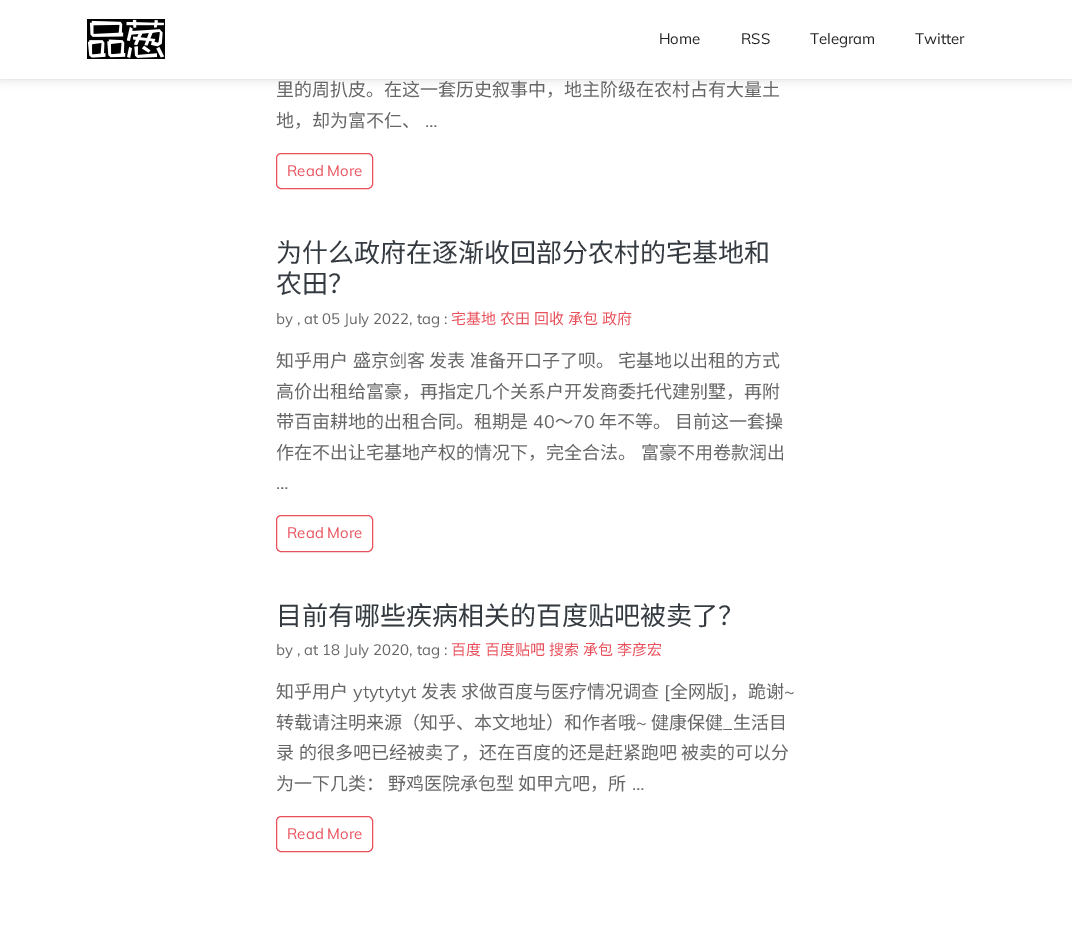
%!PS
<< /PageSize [1072 928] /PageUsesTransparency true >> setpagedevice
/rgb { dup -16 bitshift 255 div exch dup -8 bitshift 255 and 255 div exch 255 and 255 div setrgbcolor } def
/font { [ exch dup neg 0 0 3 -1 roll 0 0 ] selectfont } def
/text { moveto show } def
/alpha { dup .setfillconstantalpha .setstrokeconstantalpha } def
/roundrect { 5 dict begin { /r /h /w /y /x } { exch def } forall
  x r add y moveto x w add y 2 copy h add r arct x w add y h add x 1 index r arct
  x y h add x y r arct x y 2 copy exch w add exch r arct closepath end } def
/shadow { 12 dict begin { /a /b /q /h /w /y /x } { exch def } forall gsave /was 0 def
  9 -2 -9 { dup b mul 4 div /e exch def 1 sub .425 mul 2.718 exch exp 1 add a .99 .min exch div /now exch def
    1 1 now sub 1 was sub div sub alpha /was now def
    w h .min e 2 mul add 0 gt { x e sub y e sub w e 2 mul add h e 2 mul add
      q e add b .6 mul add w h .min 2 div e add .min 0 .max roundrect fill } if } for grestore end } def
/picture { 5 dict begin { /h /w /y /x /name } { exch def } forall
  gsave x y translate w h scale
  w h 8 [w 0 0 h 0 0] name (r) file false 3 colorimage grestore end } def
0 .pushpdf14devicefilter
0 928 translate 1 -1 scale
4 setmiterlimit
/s1 { /Muli-Regular 15 font 16#222222 rgb } def
/s2 { /NotoSansCJKSC-Regular 18 font 16#666666 rgb } def
/s3 { /Muli-Regular 18 font 16#666666 rgb } def
/s4 { /Muli-Regular 15 font 16#E8505B rgb } def
/s5 { /NotoSansCJKSC-Regular 26 font 16#343A40 rgb } def
/s6 { /Muli-Regular 15 font 16#666666 rgb } def
/s7 { /NotoSansCJKSC-Regular 15 font 16#E8505B rgb } def
16#FFFFFF rgb
0 0 1072 928 rectfill
16#000000 rgb
0 0 1072 79 0 5 0.16 shadow
16#FFFFFF rgb
0 0 1072 79 rectfill
(pic1.raw) 87 19 78 40 picture
s1
(Home) 659 44 text
(RSS) 741 44 text
(Telegram) 810 44 text
(Twitter) 915 44 text
s2
(里的周扒皮。在这一套历史叙事中，地主阶级在农村占有大量土) 276 96 text
(地，却为富不仁、) 276 127 text
s3
(…) 425 127 text
16#E8505B rgb
276.5 153.5 96 35 4.5 roundrect stroke
s4
(Read More) 287 176 text
s5
(为什么政府在逐渐收回部分农村的宅基地和) 276 262 text
(农田？) 276 293 text
s6
(by , at 05 July 2022, tag :) 276 324 text
s7
(宅基地) 451 324 text
(农田) 500 324 text
(回收) 534 324 text
(承包) 568 324 text
(政府) 602 324 text
/NotoSansCJKSC-Regular 18 font
16#666666 rgb
276 367 moveto 0.5 0 32 (知乎用户 盛京剑客 发表 准备开口子了呗。 宅基地以出租的方式) widthshow
(高价出租给富豪，再指定几个关系户开发商委托代建别墅，再附) 276 398 text
(带百亩耕地的出租合同。租期是) 276 428 text
s3
(40) 533 428 text
s2
(～) 555 428 text
s3
(70) 573 428 text
s2
(年不等。 目前这一套操) 599 428 text
276 459 moveto 0.5 0 32 (作在不出让宅基地产权的情况下，完全合法。 富豪不用卷款润出) widthshow
s3
(…) 276 489 text
16#E8505B rgb
276.5 515.5 96 36 4.5 roundrect stroke
s4
(Read More) 287 538 text
s5
(目前有哪些疾病相关的百度贴吧被卖了？) 276 625 text
s6
(by , at 18 July 2020, tag :) 276 655 text
s7
(百度) 451 655 text
(百度贴吧) 485 655 text
(搜索) 549 655 text
(承包) 583 655 text
(李彦宏) 617 655 text
s2
(知乎用户) 276 698 text
s3
(ytytytyt) 353 698 text
s2
(发表 求做百度与医疗情况调查) 421 698 text
s3
([) 664 698 text
s2
(全网版) 670 698 text
s3
(]) 724 698 text
s2
(，跪谢) 730 698 text
s3
(~) 784 698 text
s2
(转载请注明来源（知乎、本文地址）和作者哦) 276 729 text
s3
(~) 636 729 text
s2
(健康保健) 651 729 text
(生活目) 733 729 text
s3
(_) 723 729 text
/NotoSansCJKSC-Regular 18 font
276 759 moveto 0.5 0 32 (录 的很多吧已经被卖了，还在百度的还是赶紧跑吧 被卖的可以分) widthshow
(为一下几类： 野鸡医院承包型 如甲亢吧，所) 276 790 text
s3
(…) 632 790 text
16#E8505B rgb
276.5 816.5 96 35 4.5 roundrect stroke
s4
(Read More) 287 839 text
.poppdf14devicefilter showpage
